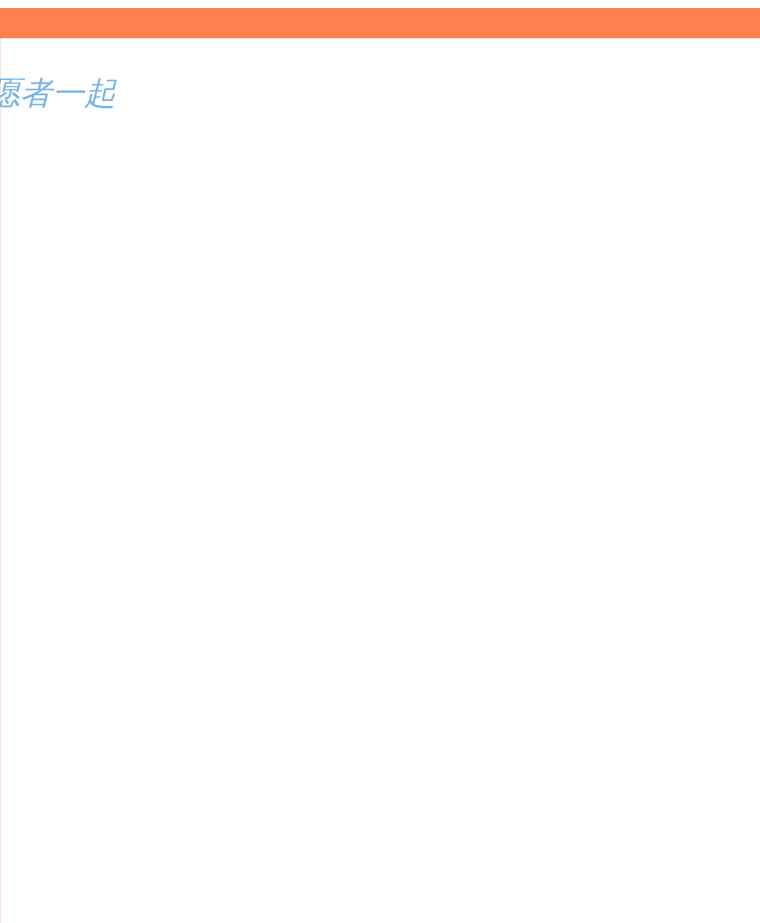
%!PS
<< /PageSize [760 923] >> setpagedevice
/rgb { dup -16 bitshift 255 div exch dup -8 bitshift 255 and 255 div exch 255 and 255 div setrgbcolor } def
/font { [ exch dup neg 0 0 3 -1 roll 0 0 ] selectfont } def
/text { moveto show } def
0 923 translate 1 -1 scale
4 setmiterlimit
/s1 { /WenQuanYiZenHei-MediumItalic 32 font 16#76B3EA rgb } def
16#FFFFFF rgb
0 0 760 923 rectfill
16#FF7F50 rgb
30 setlinewidth
-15 23 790 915 rectstroke
s1
(愿者一起) -12 104 text
showpage
